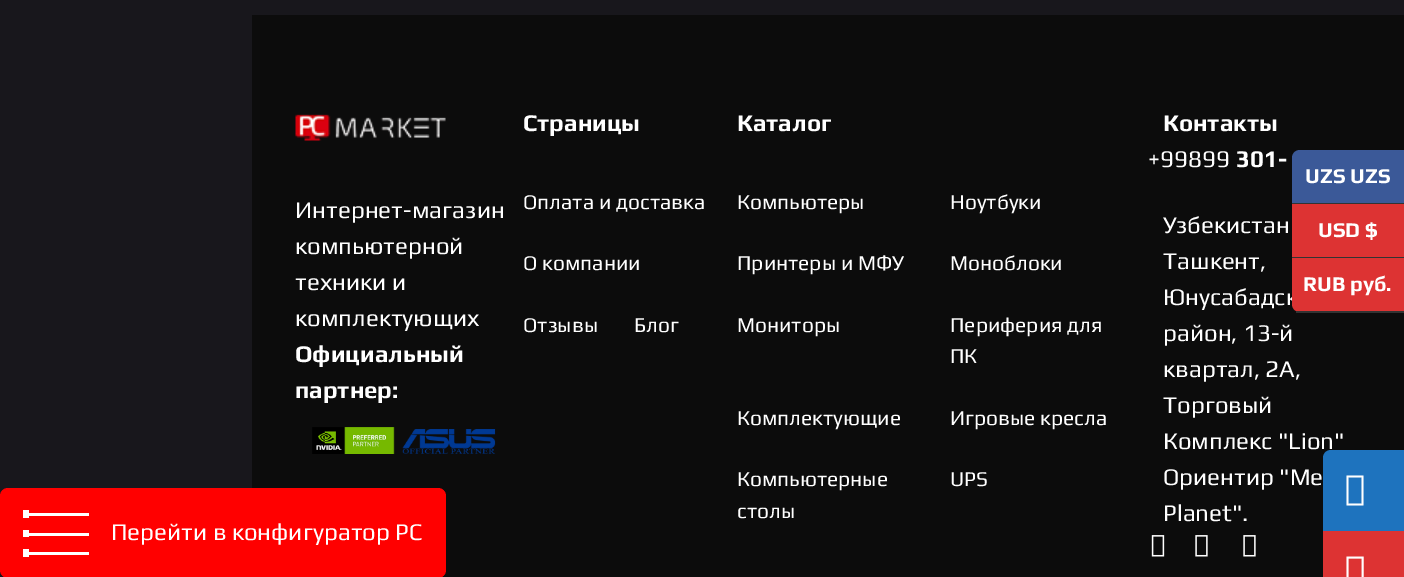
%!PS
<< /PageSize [1404 577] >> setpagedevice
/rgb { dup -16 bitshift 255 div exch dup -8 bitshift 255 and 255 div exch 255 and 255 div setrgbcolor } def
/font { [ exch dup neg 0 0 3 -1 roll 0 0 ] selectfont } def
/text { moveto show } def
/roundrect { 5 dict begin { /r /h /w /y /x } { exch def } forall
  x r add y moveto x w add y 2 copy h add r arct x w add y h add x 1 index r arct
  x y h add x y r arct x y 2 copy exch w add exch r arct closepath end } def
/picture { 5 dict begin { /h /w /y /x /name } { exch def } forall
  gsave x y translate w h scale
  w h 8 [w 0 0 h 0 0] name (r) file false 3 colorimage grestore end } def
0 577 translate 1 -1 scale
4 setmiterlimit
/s1 { /Play-Regular 24 font 16#FFFFFF rgb } def
/s2 { /Play-Bold 24 font 16#FFFFFF rgb } def
/s3 { /Play-Regular 21 font 16#FFFFFF rgb } def
/s4 { /Play-Bold 21 font 16#FFFFFF rgb } def
16#18171C rgb
0 0 1404 577 rectfill
16#0C0C0C rgb
252 15 1152 562 rectfill
(pic1.raw) 295 114 151 27 picture
s1
(Интернет-магазин) 295 218 text
(компьютерной) 295 254 text
(техники и) 295 290 text
(комплектующих) 295 326 text
s2
(Официальный) 295 362 text
(партнер:) 295 398 text
(pic2.raw) 312 427 184 27 picture
(Страницы) 523 131 text
s3
(Оплата и доставка) 523 209 text
(О компании) 523 270 text
(Отзывы) 523 332 text
(Блог) 634 332 text
s2
(Каталог) 737 131 text
s3
(Компьютеры) 737 209 text
(Ноутбуки) 950 209 text
(Принтеры и МФУ) 737 270 text
(Моноблоки) 950 270 text
(Мониторы) 737 332 text
(Периферия для) 950 332 text
(ПК) 950 363 text
(Комплектующие) 737 425 text
(Игровые кресла) 950 425 text
(Компьютерные) 737 486 text
(столы) 737 518 text
(UPS) 950 486 text
s2
(Контакты) 1163 131 text
s1
(+99899) 1148 167 text
s2
(301-) 1236 167 text
s1
(Узбекистан) 1163 233 text
(Ташкент,) 1163 269 text
(Юнусабадск) 1163 305 text
(район, 13-й) 1163 341 text
(квартал, 2А,) 1163 377 text
(Торговый) 1163 413 text
(Комплекс "Lion") 1163 449 text
(Ориентир "Me) 1163 485 text
(Planet".) 1163 521 text
(pic3.raw) 1151 535 14 22 picture
(pic4.raw) 1195 535 13 22 picture
(pic4.raw) 1243 535 13 22 picture
16#3B5998 rgb
1300 150 moveto 1404 150 lineto 1404 204 lineto 1292 204 lineto 1292 158 lineto 1292 153.5 1295.5 150 1300 150 curveto closepath fill
16#333333 rgb
1292 203 112 1 rectfill
s4
(UZS UZS) 1305 183 text
16#DD3333 rgb
1292 204 112 53 rectfill
16#333333 rgb
1292 257 112 1 rectfill
s4
(USD $) 1318 237 text
16#DD3333 rgb
1292 258 moveto 1404 258 lineto 1404 312 lineto 1300 312 lineto 1295.5 312 1292 308.5 1292 304 curveto closepath fill
16#333333 rgb
1296 311 108 2 rectfill
s4
(RUB руб.) 1303 291 text
16#FF0000 rgb
0 488 446 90 8 roundrect fill
16#FFFFFF rgb
23 510 6 8 rectfill
23 513 66 3 rectfill
23 530 6 7 rectfill
23 533 66 3 rectfill
23 549 6 8 rectfill
23 552 66 3 rectfill
s1
(Перейти в конфигуратор PC) 111 540 text
16#1E73BE rgb
1331 450 moveto 1404 450 lineto 1404 531 lineto 1323 531 lineto 1323 458 lineto 1323 453.5 1326.5 450 1331 450 curveto closepath fill
16#FFFFFF rgb
1346.5 505.5 moveto 1346.5 475.5 lineto 1363.5 475.5 lineto 1363.5 505.5 lineto closepath 1348.5 503.5 moveto 1361.5 503.5 lineto 1361.5 477.5 lineto 1348.5 477.5 lineto closepath fill
16#DD3333 rgb
1323 531 81 46 rectfill
(pic5.raw) 1346 556 18 21 picture
showpage
